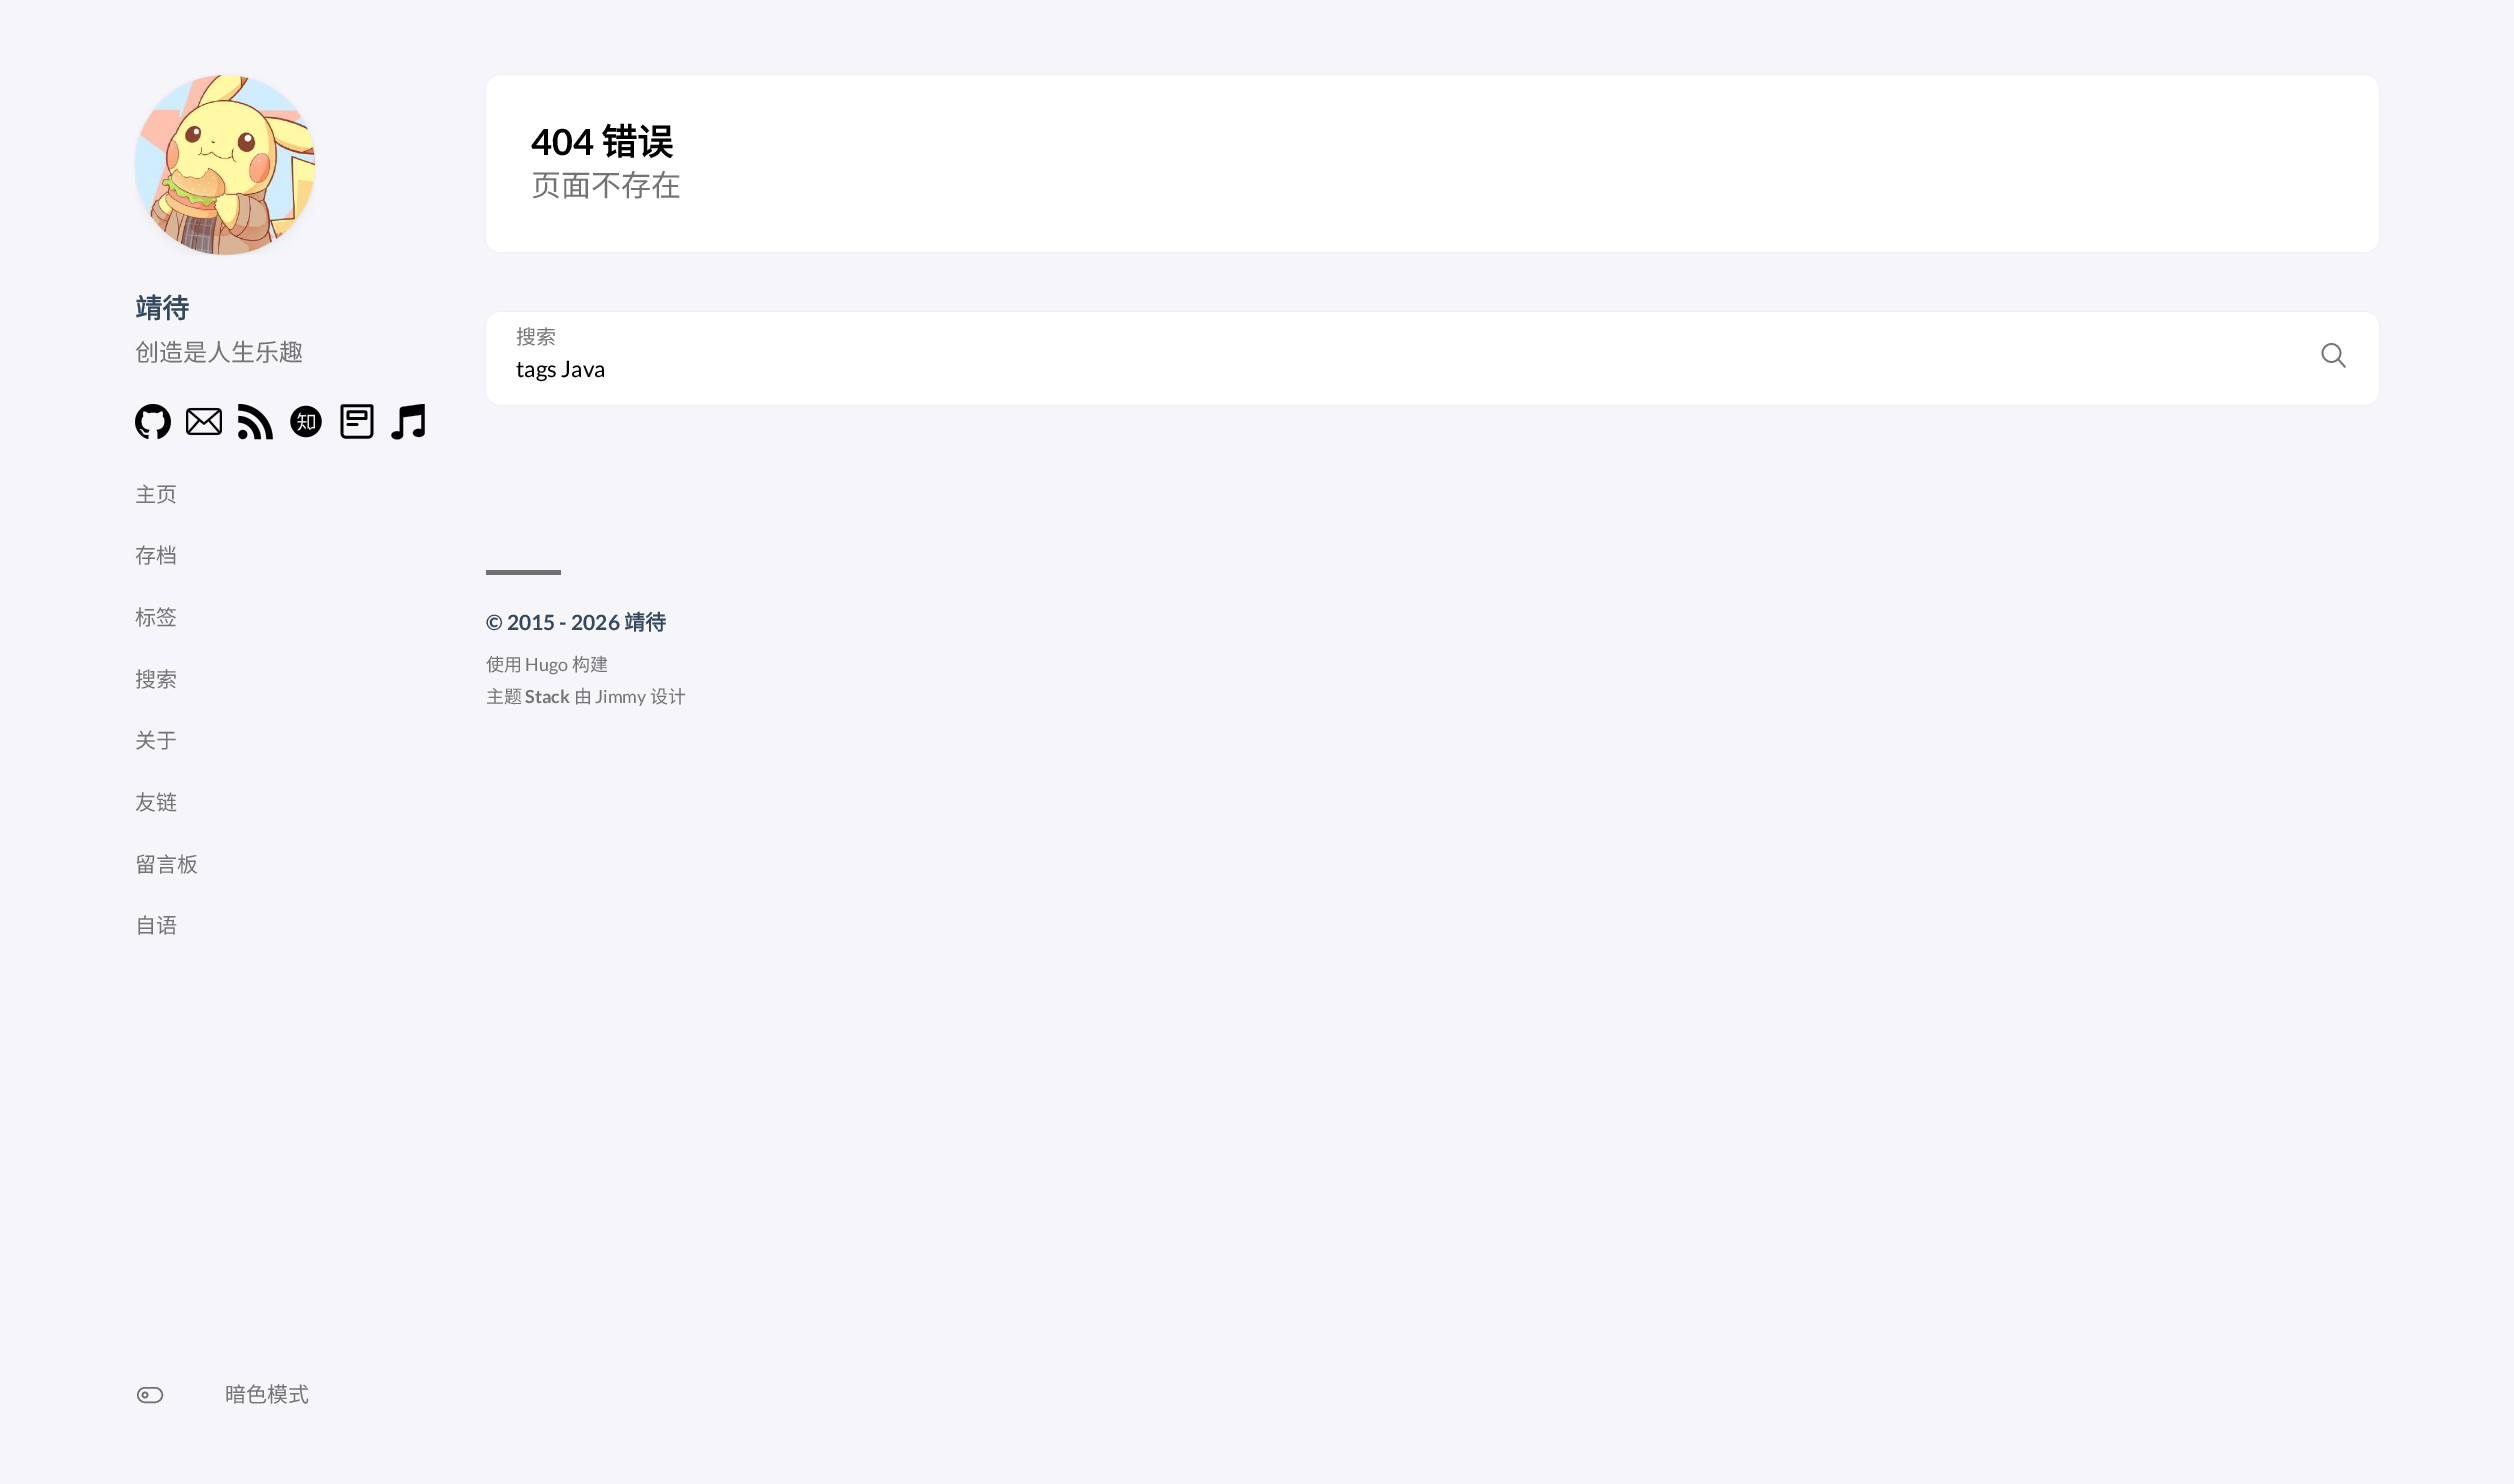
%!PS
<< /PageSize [2514 1484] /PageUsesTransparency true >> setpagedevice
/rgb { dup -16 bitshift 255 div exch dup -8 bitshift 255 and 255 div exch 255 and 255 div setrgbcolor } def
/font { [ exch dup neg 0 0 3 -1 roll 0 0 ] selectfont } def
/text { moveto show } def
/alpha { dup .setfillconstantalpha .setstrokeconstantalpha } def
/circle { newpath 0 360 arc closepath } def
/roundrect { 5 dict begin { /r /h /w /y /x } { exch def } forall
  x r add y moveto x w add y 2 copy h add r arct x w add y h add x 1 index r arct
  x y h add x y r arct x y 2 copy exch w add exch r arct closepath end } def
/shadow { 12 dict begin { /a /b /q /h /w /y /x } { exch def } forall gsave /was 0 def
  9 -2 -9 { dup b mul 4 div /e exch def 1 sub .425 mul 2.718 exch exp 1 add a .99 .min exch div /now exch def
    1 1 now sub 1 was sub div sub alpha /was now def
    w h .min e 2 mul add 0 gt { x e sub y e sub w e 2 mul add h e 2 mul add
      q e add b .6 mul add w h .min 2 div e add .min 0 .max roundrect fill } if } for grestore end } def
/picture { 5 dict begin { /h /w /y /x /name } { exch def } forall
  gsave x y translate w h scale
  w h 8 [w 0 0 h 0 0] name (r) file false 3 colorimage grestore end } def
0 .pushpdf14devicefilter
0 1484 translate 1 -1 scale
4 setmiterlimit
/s1 { /NotoSansCJKSC-Bold 27 font 16#34495E rgb } def
/s2 { /NotoSansCJKSC-Regular 24 font 16#747474 rgb } def
/s3 { /NotoSansCJKSC-Regular 21 font 16#747474 rgb } def
/s4 { /Lato-Bold 36 font 16#000000 rgb } def
/s5 { /NotoSansCJKSC-Bold 36 font 16#000000 rgb } def
/s6 { /NotoSansCJKSC-Regular 30 font 16#747474 rgb } def
/s7 { /NotoSansCJKSC-Regular 20 font 16#747474 rgb } def
/s8 { /Lato-Regular 22.5 font 16#000000 rgb } def
/s9 { /Lato-Bold 21 font 16#34495E rgb } def
/s10 { /NotoSansCJKSC-Bold 21 font 16#34495E rgb } def
/s11 { /NotoSansCJKSC-Regular 18 font 16#747474 rgb } def
/s12 { /Lato-Regular 18 font 16#747474 rgb } def
/s13 { /Lato-Bold 18 font 16#747474 rgb } def
16#F5F5FA rgb
0 0 2514 1484 rectfill
16#000000 rgb
135 75 180 180 90 1.5 0.06 shadow
(pic1.raw) 135 75 180 180 picture
s1
(靖待) 135 318 text
s2
(创造是人生乐趣) 135 361 text
(pic2.raw) 135 404 36 36 picture
(pic3.raw) 186 407 36 29 picture
(pic4.raw) 238 404 35 36 picture
(pic5.raw) 290 405 32 33 picture
(pic6.raw) 340 404 34 35 picture
(pic7.raw) 391 404 34 36 picture
s3
(主页) 135 502 text
(存档) 135 563 text
(标签) 135 625 text
(搜索) 135 687 text
(关于) 135 748 text
(友链) 135 810 text
(留言板) 135 872 text
(自语) 135 933 text
16#707070 rgb
1.7 setlinewidth
145 1395 2.5 circle stroke
1.5 setlinewidth
137.75 1387.75 24.5 14.5 7.25 roundrect stroke
s3
(暗色模式) 225 1402 text
16#000000 rgb
486 75 1893 177 15 1.5 0.06 shadow
16#FFFFFF rgb
486 75 1893 177 15 roundrect fill
s4
(404) 531 155 text
s5
(错误) 601 155 text
s6
(页面不存在) 531 196 text
16#000000 rgb
486 312 1893 93 15 1.5 0.06 shadow
16#FFFFFF rgb
486 312 1893 93 15 roundrect fill
s7
(搜索) 516 344 text
1.7 setlinewidth
2331.5 353 9 circle stroke
1 setlinecap
1 setlinejoin
2345 367 moveto 2338 359 lineto stroke
s8
(tags Java) 516 377 text
16#707070 rgb
486 570 75 5 rectfill
s9
(© 2015 - 2026) 486 630 text
s10
(靖待) 624 630 text
s11
(使用) 486 671 text
s12
(Hugo) 525 671 text
s11
(构建) 572 671 text
(主题) 486 703 text
s13
(Stack) 525 703 text
s11
(由) 574 703 text
s12
(Jimmy) 595 703 text
s11
(设计) 650 703 text
.poppdf14devicefilter showpage
